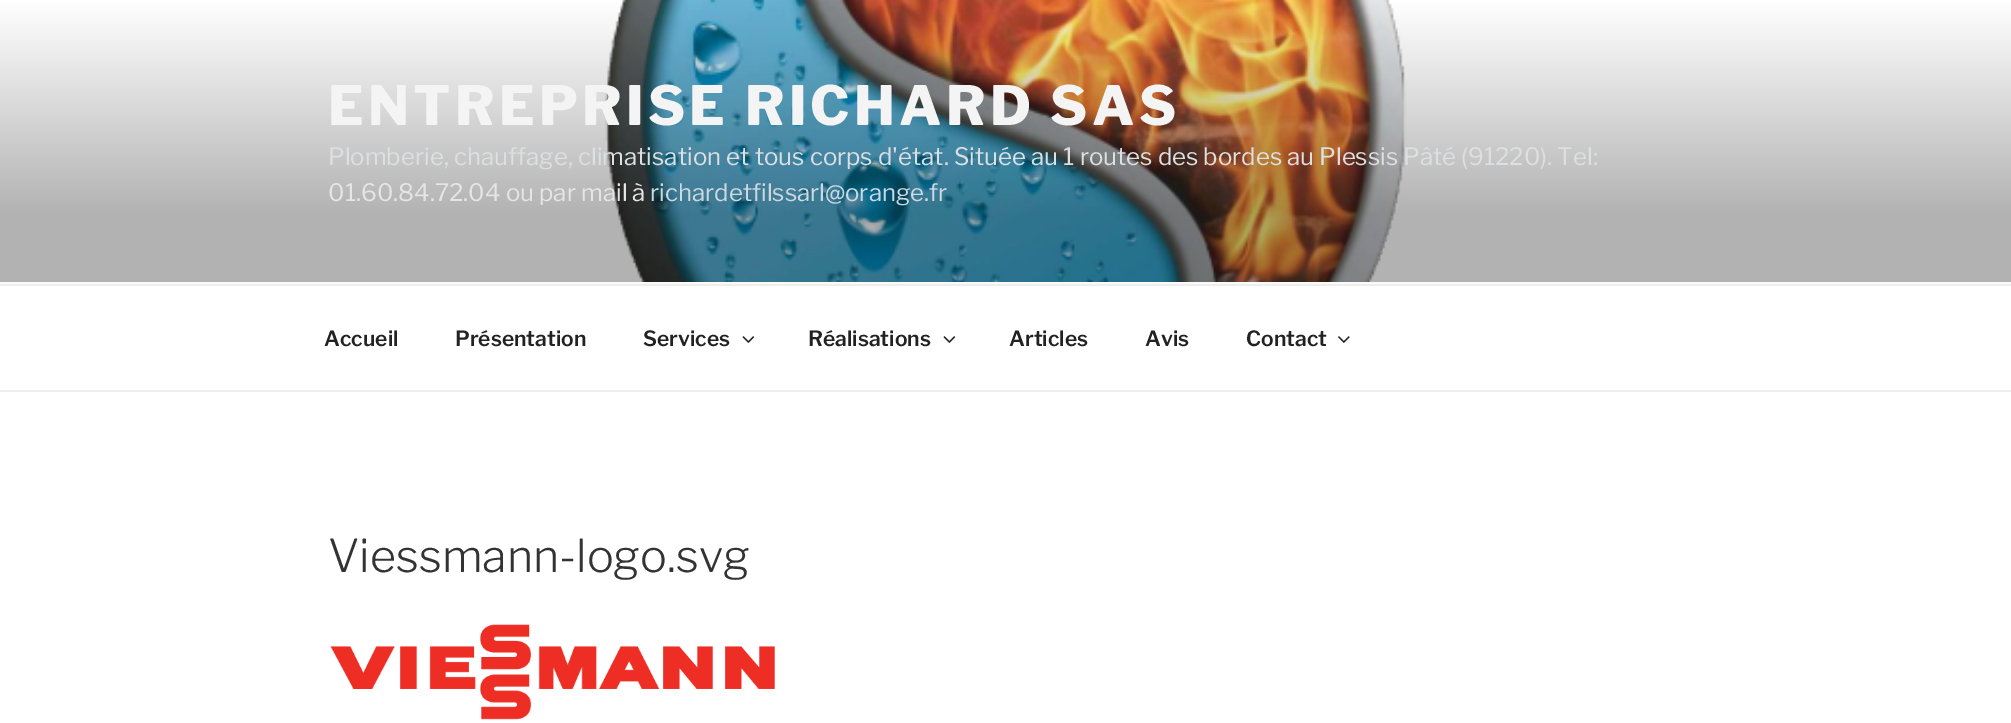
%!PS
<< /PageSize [2011 723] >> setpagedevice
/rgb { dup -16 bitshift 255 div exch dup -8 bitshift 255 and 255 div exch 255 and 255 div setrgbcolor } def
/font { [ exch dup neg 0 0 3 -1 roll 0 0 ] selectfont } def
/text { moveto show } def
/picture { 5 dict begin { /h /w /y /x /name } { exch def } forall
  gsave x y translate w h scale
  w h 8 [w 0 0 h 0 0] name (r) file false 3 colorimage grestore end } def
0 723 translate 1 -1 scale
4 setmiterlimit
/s1 { /LibreFranklin-Regular 24 font 16#DDDFE0 rgb } def
/s2 { /LibreFranklin-Regular 24 font 16#E5E5E5 rgb } def
/s3 { /LibreFranklin-Regular 24 font 16#CDD9DF rgb } def
/s4 { /LibreFranklin-SemiBold 21 font 16#222222 rgb } def
/s5 { /LibreFranklin-Light 45 font 16#333333 rgb } def
16#FFFFFF rgb
0 0 2011 723 rectfill
16#FAFAFA rgb
0 282 2011 2 rectfill
(pic1.raw) 0 0 2011 282 picture
/LibreFranklin-ExtraBold 54 font
16#F4F4F4 rgb
328 125 moveto 4.3 0 (ENTREPRISE RICHARD SAS) ashow
s1
(Plomberie, chauffage, climatisation et tous corps d'état. Située au 1 routes des bordes au Plessis Pâté \(91220\). Tel:) 328 165 text
s2
(01.60.84.72.04 ou par mail à) 328 201 text
s3
(richardetfilssarl@orange.fr) 650 201 text
16#EEEEEE rgb
0 284 2011 2 rectfill
0 390 2011 2 rectfill
s4
(Accueil) 324 346 text
(Présentation) 455 346 text
(Services) 643 346 text
(pic2.raw) 742 336 13 7 picture
(Réalisations) 808 346 text
(pic2.raw) 943 336 13 7 picture
(Articles) 1009 346 text
(Avis) 1145 346 text
(Contact) 1246 346 text
(pic3.raw) 1338 336 12 7 picture
s5
(Viessmann-logo.svg) 328 572 text
(pic4.raw) 330 624 445 96 picture
showpage
